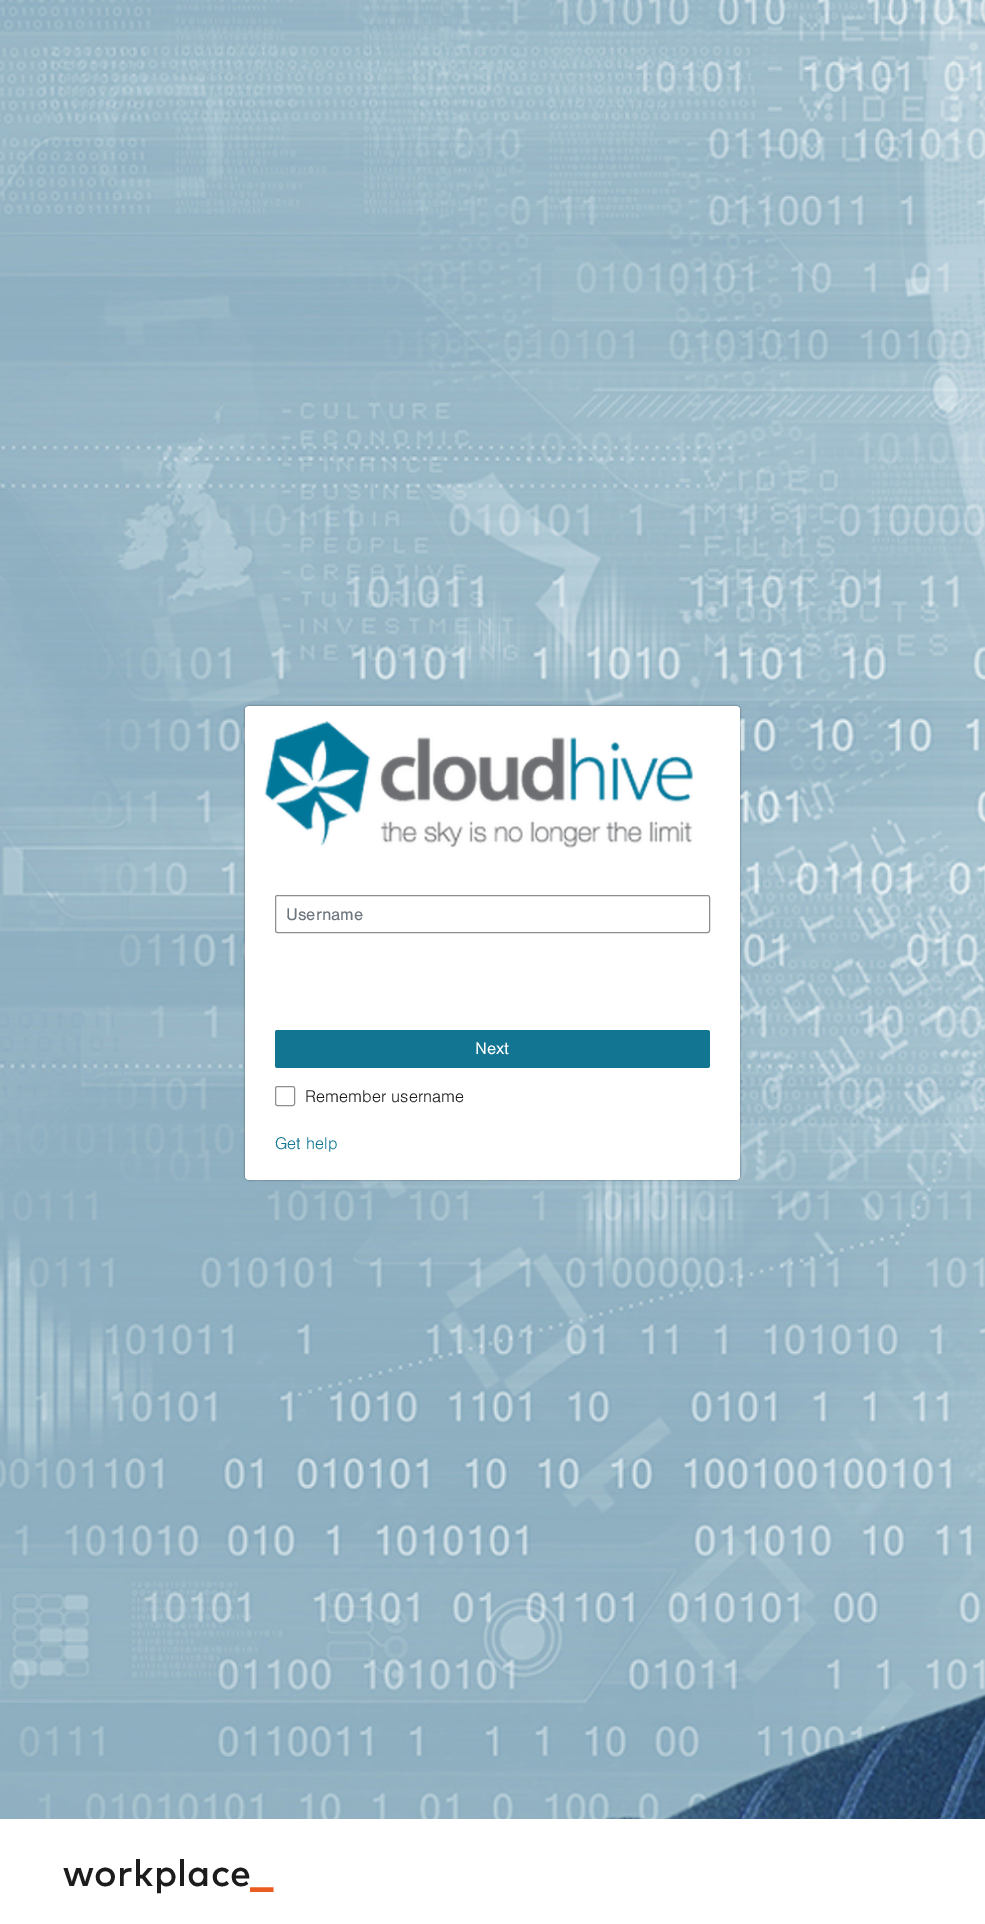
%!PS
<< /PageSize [985 1924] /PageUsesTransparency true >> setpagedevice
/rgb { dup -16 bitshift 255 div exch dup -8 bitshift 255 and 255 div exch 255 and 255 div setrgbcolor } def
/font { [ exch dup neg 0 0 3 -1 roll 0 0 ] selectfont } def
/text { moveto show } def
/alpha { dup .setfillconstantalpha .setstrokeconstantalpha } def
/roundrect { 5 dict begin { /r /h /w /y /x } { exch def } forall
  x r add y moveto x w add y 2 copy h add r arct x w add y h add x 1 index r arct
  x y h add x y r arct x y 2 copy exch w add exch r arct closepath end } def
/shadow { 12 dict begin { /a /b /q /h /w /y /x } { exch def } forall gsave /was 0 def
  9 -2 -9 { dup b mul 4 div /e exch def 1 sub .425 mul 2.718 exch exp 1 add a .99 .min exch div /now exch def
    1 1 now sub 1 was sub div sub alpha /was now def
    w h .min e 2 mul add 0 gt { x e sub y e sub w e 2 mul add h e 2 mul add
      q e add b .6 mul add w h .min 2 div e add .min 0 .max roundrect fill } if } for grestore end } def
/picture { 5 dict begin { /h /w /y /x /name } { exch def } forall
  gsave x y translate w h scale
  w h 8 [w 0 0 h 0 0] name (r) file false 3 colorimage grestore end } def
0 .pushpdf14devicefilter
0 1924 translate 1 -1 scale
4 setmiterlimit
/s1 { /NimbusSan-Regular 17.5 font 16#6C757D rgb } def
/s2 { /NimbusSan-Regular 17.5 font 16#FFFFFF rgb } def
/s3 { /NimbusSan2-Regular 17.5 font 16#1C1C1C rgb } def
/s4 { /NimbusSan2-Regular 17.5 font 16#127693 rgb } def
/s5 { /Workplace-Medium 37.5 font 16#1C1C1C rgb } def
/s6 { /Workplace-Medium 37.5 font 16#EA5C20 rgb } def
16#FFFFFF rgb
0 0 985 1924 rectfill
(pic1.raw) 0 0 985 1819 picture
16#000000 rgb
245 706 495 474 4 1 0.5 shadow
16#FFFFFF rgb
245 706 495 474 4 roundrect fill
(pic2.raw) 245 706 495 143 picture
16#8E8E8E rgb
275.5 895.5 434 37 2 roundrect stroke
s1
(Username) 286 920 text
16#127693 rgb
275 1030 435 38 2.5 roundrect fill
s2
(Next) 475 1054 text
16#8E8E8E rgb
275.5 1086.5 19 19 2 roundrect stroke
s3
(Remember username) 305 1102 text
s4
(Get help) 275 1149 text
s5
(workplace) 63 1886 text
s6
(_) 250 1886 text
.poppdf14devicefilter showpage
